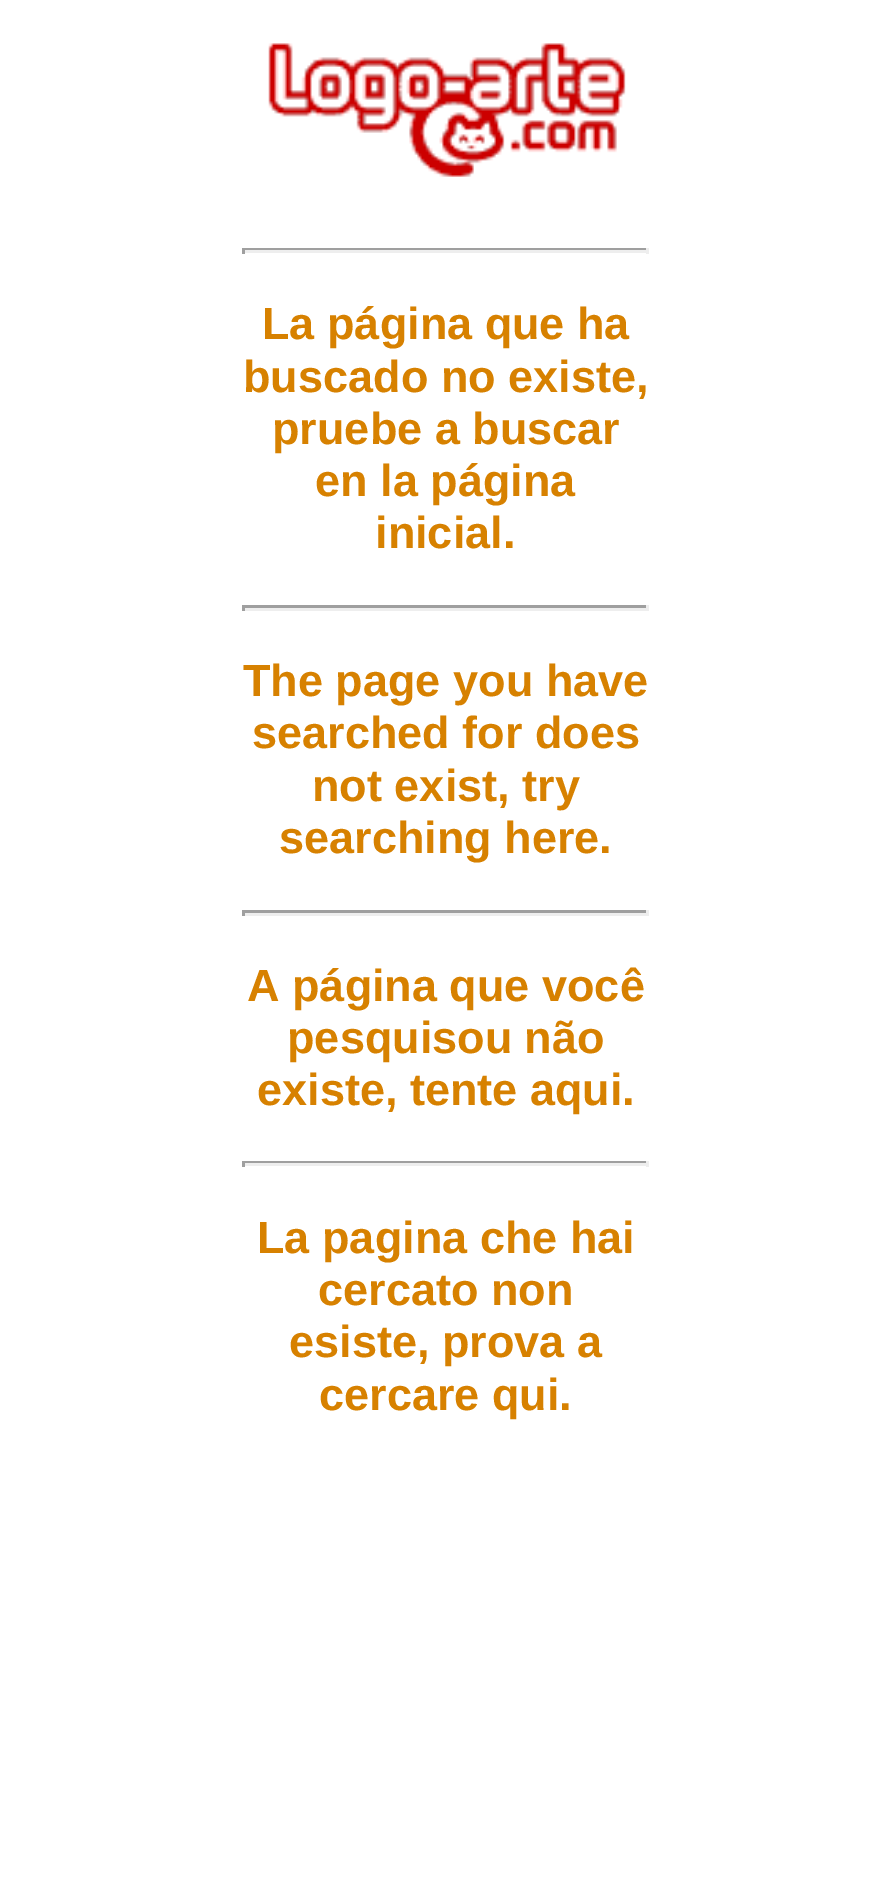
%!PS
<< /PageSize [889 1877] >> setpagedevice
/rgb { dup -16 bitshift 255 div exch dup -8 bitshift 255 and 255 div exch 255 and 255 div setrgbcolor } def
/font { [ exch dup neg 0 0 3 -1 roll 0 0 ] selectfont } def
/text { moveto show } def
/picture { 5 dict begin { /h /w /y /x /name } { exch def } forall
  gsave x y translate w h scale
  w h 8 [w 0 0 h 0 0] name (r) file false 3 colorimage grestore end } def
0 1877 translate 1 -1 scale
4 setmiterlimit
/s1 { /LiberationSans-Bold 45 font 16#D78100 rgb } def
16#FFFFFF rgb
0 0 889 1877 rectfill
(pic1.raw) 268 43 358 134 picture
16#9F9F9F rgb
242 248 407 2 rectfill
16#EEEEEE rgb
646 248 3 6 rectfill
242 250 407 3 rectfill
16#9F9F9F rgb
242 248 3 6 rectfill
s1
(La página que ha) 262 339 text
(buscado no existe,) 243 392 text
(pruebe a buscar) 272 444 text
(en la página) 315 496 text
(inicial.) 375 548 text
16#9F9F9F rgb
242 605 407 3 rectfill
16#EEEEEE rgb
646 605 3 6 rectfill
242 608 407 3 rectfill
16#9F9F9F rgb
242 605 3 6 rectfill
s1
(The page you have) 243 696 text
(searched for does) 252 748 text
(not exist, try) 312 801 text
(searching here.) 279 853 text
16#9F9F9F rgb
242 910 407 3 rectfill
16#EEEEEE rgb
646 910 3 6 rectfill
242 913 407 3 rectfill
16#9F9F9F rgb
242 910 3 6 rectfill
s1
(A página que você) 247 1001 text
(pesquisou não) 287 1053 text
(existe, tente aqui.) 257 1105 text
16#9F9F9F rgb
242 1161 407 2 rectfill
16#EEEEEE rgb
646 1161 3 6 rectfill
242 1163 407 3 rectfill
16#9F9F9F rgb
242 1161 3 6 rectfill
s1
(La pagina che hai) 257 1253 text
(cercato non) 318 1305 text
(esiste, prova a) 289 1357 text
(cercare qui.) 319 1410 text
showpage
